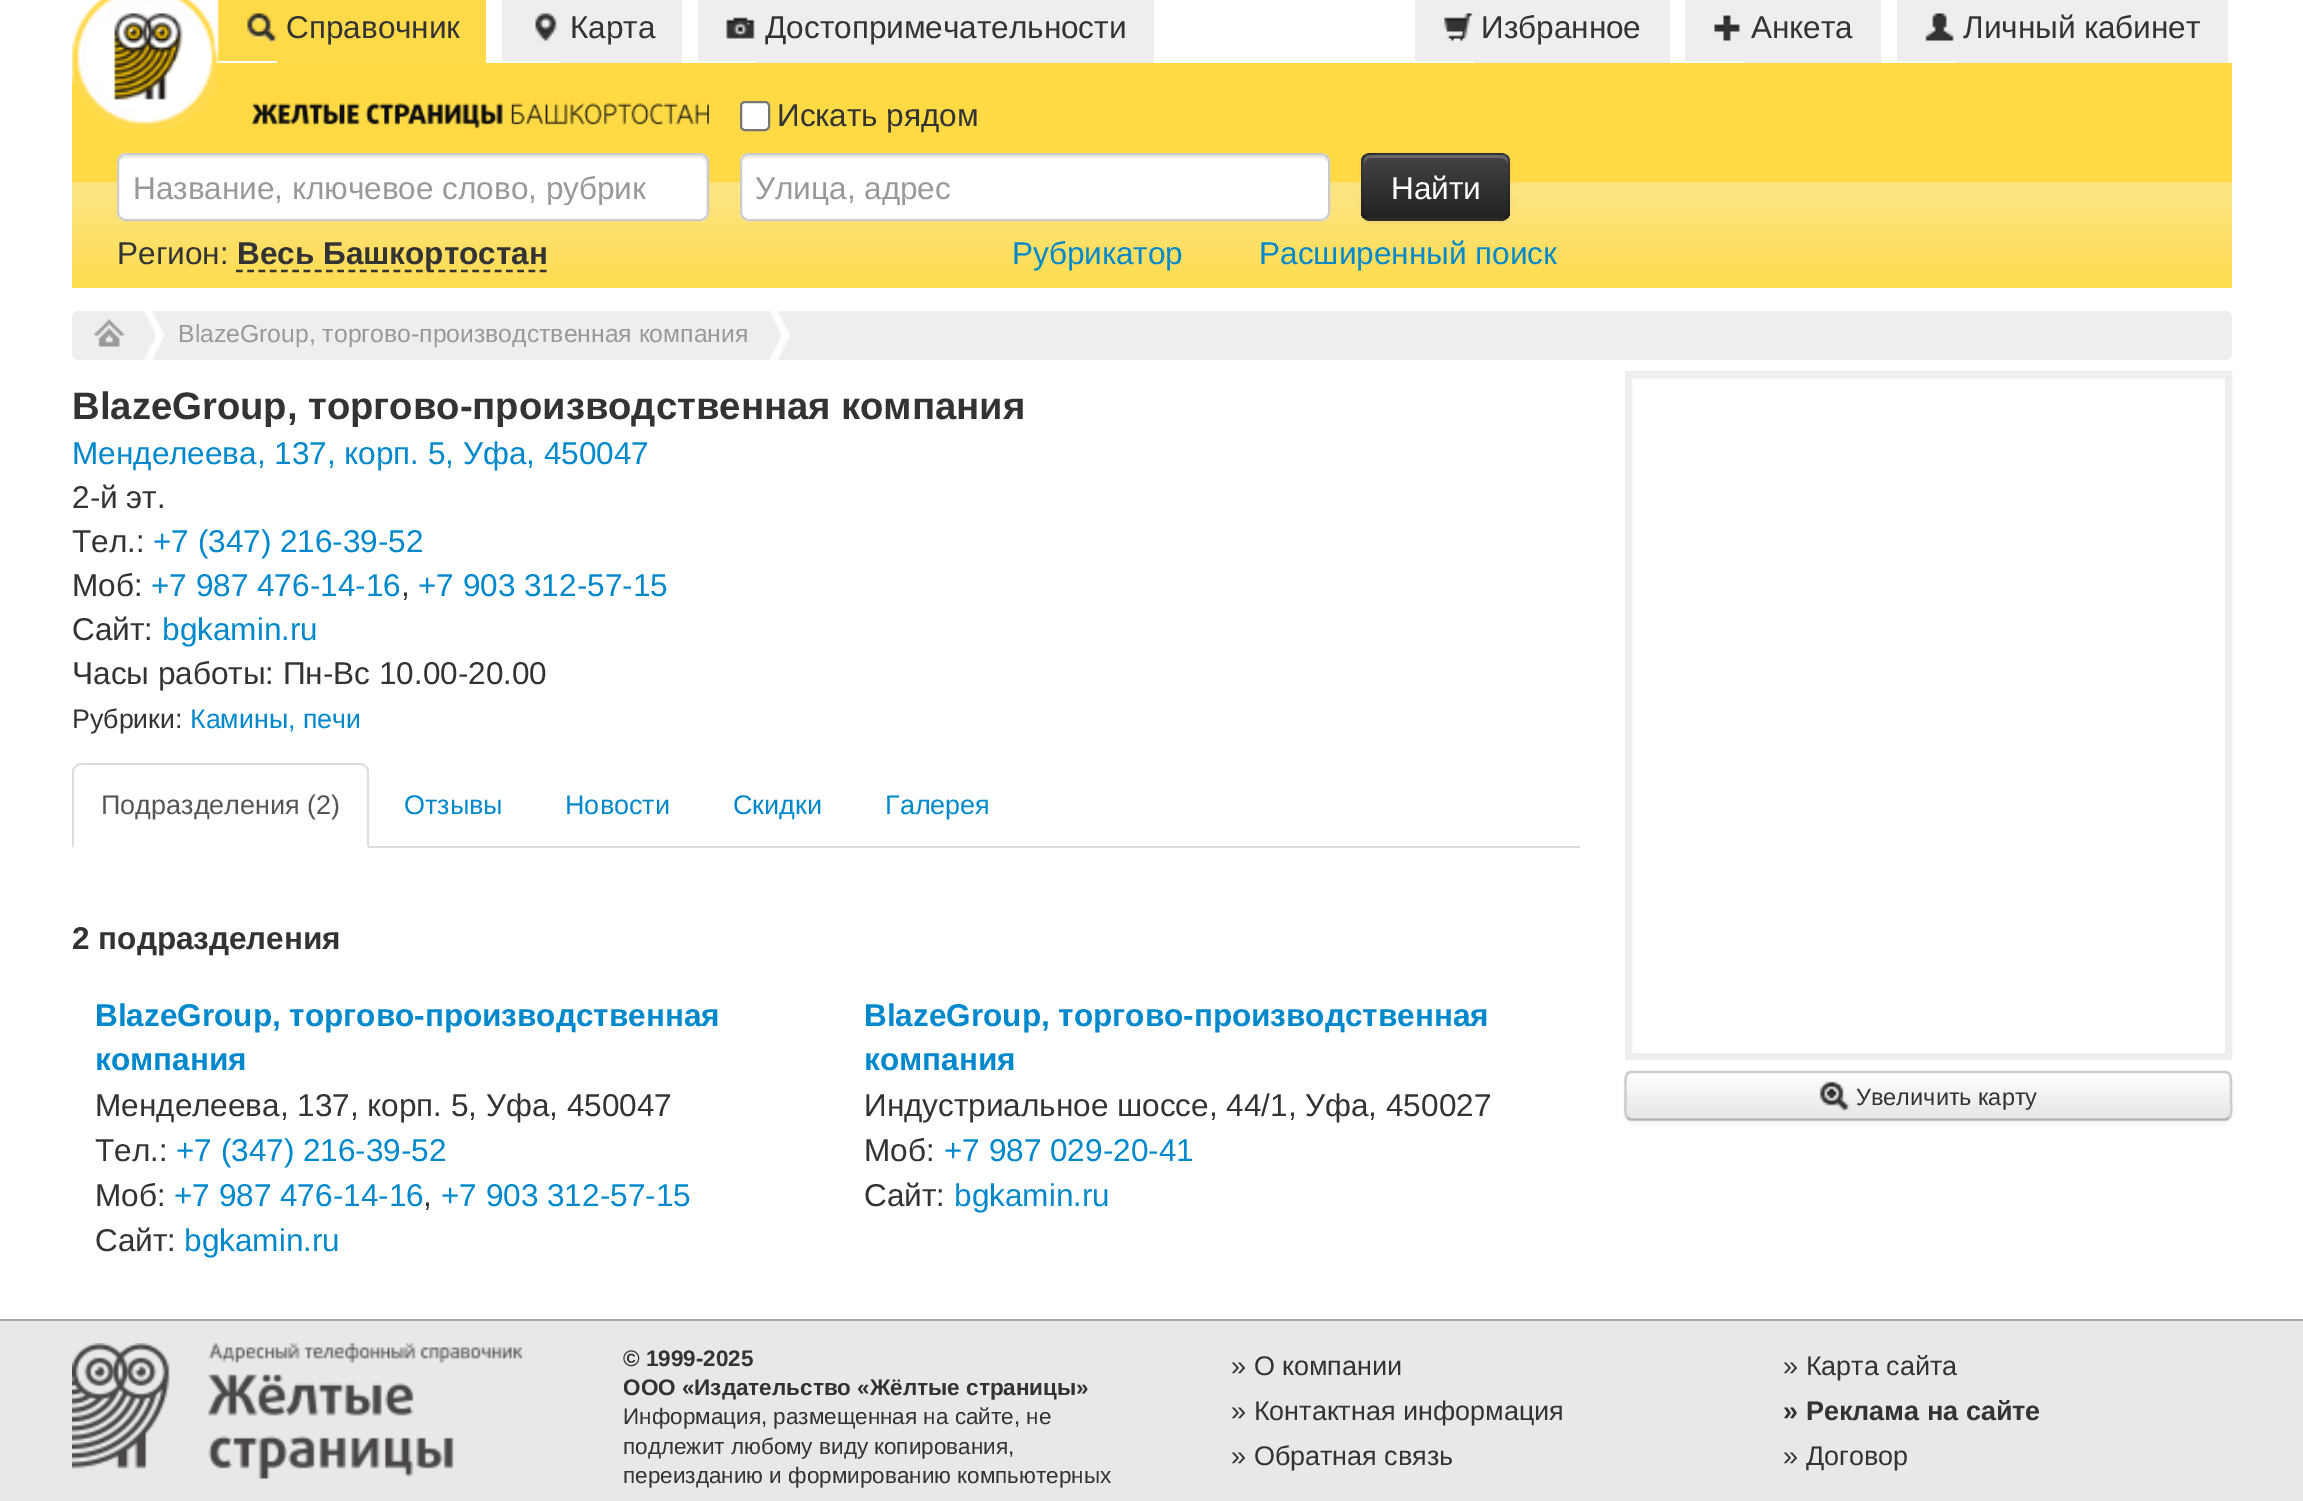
%!PS
<< /PageSize [2303 1501] /PageUsesTransparency true >> setpagedevice
/rgb { dup -16 bitshift 255 div exch dup -8 bitshift 255 and 255 div exch 255 and 255 div setrgbcolor } def
/font { [ exch dup neg 0 0 3 -1 roll 0 0 ] selectfont } def
/text { moveto show } def
/alpha { dup .setfillconstantalpha .setstrokeconstantalpha } def
/roundrect { 5 dict begin { /r /h /w /y /x } { exch def } forall
  x r add y moveto x w add y 2 copy h add r arct x w add y h add x 1 index r arct
  x y h add x y r arct x y 2 copy exch w add exch r arct closepath end } def
/shadow { 12 dict begin { /a /b /q /h /w /y /x } { exch def } forall gsave /was 0 def
  9 -2 -9 { dup b mul 4 div /e exch def 1 sub .425 mul 2.718 exch exp 1 add a .99 .min exch div /now exch def
    1 1 now sub 1 was sub div sub alpha /was now def
    w h .min e 2 mul add 0 gt { x e sub y e sub w e 2 mul add h e 2 mul add
      q e add b .6 mul add w h .min 2 div e add .min 0 .max roundrect fill } if } for grestore end } def
/picture { 5 dict begin { /h /w /y /x /name } { exch def } forall
  gsave x y translate w h scale
  w h 8 [w 0 0 h 0 0] name (r) file false 3 colorimage grestore end } def
0 .pushpdf14devicefilter
0 1501 translate 1 -1 scale
4 setmiterlimit
/s1 { /LiberationSans-Regular 31.5 font 16#333333 rgb } def
/s2 { /LiberationSans-Regular 31.5 font 16#999999 rgb } def
/s3 { /LiberationSans-Regular 31.5 font 16#FFFFFF rgb } def
/s4 { /LiberationSans-Bold 31.5 font 16#333333 rgb } def
/s5 { /LiberationSans-Regular 31.5 font 16#0088CC rgb } def
/s6 { /LiberationSans-Regular 24.75 font 16#999999 rgb } def
/s7 { /LiberationSans-Bold 38.25 font 16#333333 rgb } def
/s8 { /LiberationSans-Regular 26.75 font 16#333333 rgb } def
/s9 { /LiberationSans-Regular 26.75 font 16#0088CC rgb } def
/s10 { /LiberationSans-Regular 27 font 16#555555 rgb } def
/s11 { /LiberationSans-Regular 27 font 16#0088CC rgb } def
/s12 { /LiberationSans-Bold 31.5 font 16#0088CC rgb } def
/s13 { /LiberationSans-Regular 23.5 font 16#333333 rgb } def
/s14 { /LiberationSans-Bold 22.5 font 16#333333 rgb } def
/s15 { /LiberationSans-Regular 22.5 font 16#333333 rgb } def
/s16 { /LiberationSans-Regular 27 font 16#333333 rgb } def
/s17 { /LiberationSans-Bold 27 font 16#333333 rgb } def
16#FFFFFF rgb
0 0 2303 1501 rectfill
16#FFDA48 rgb
227 -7 moveto 277 -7 lineto 277 61 lineto 218 61 lineto 218 2 lineto 218 -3 222 -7 227 -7 curveto closepath fill
277 0 209 63 rectfill
(pic1.raw) 247 13 30 30 picture
s1
(Справочник) 286 38 text
16#EEEEEE rgb
511 -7 moveto 560 -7 lineto 560 61 lineto 502 61 lineto 502 2 lineto 502 -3 506 -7 511 -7 curveto closepath fill
560 0 122 63 rectfill
(pic2.raw) 535 13 22 29 picture
s1
(Карта) 570 38 text
16#EEEEEE rgb
707 -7 moveto 756 -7 lineto 756 61 lineto 698 61 lineto 698 2 lineto 698 -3 702 -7 707 -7 curveto closepath fill
756 0 398 63 rectfill
(pic3.raw) 726 17 29 23 picture
s1
(Достопримечательности) 765 38 text
16#EEEEEE rgb
1424 -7 moveto 1474 -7 lineto 1474 61 lineto 1415 61 lineto 1415 2 lineto 1415 -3 1419 -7 1424 -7 curveto closepath fill
1474 0 196 63 rectfill
(pic4.raw) 1444 13 29 29 picture
s1
(Избранное) 1481 38 text
16#EEEEEE rgb
1694 -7 moveto 1744 -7 lineto 1744 61 lineto 1685 61 lineto 1685 2 lineto 1685 -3 1689 -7 1694 -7 curveto closepath fill
1744 0 137 63 rectfill
(pic5.raw) 1714 15 26 27 picture
s1
(Анкета) 1751 38 text
16#EEEEEE rgb
1906 -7 moveto 1955 -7 lineto 1955 61 lineto 1897 61 lineto 1897 2 lineto 1897 -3 1901 -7 1906 -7 curveto closepath fill
1955 0 273 63 rectfill
(pic6.raw) 1925 13 29 29 picture
s1
(Личный кабинет) 1963 38 text
(pic7.raw) 72 63 2160 225 picture
(pic8.raw) 72 0 147 128 picture
(pic9.raw) 252 103 457 26 picture
16#FFFFFF rgb
741 102 28 28 4 roundrect gsave fill grestore
16#767676 rgb
2 setlinewidth
stroke
s1
(Искать рядом) 777 126 text
16#FFFFFF rgb
117 153 592 68 9 roundrect fill
16#ECECEC rgb
126 158 moveto 700 158 lineto 703 158 706 161 706 164 curveto 706 215 lineto 707 214 707 212 707 211 curveto 707 162 lineto 707 158 704 155 700 155 curveto 126 155 lineto 122 155 119 158 119 162 curveto 119 164 lineto 119 161 122 158 126 158 curveto closepath fill
16#CCCCCC rgb
118 154 590 66 8 roundrect stroke
gsave
133 169 517 36 rectclip
s2
(Название, ключевое слово, рубрик) 133 199 text
grestore
16#FFFFFF rgb
740 153 590 68 9 roundrect fill
16#ECECEC rgb
749 158 moveto 1321 158 lineto 1324 158 1328 161 1328 164 curveto 1328 160 1326 155 1321 155 curveto 750 155 lineto 746 155 743 158 743 161 curveto 744 159 747 158 749 158 curveto closepath fill
16#CCCCCC rgb
741 154 588 66 8 roundrect stroke
gsave
756 169 515 36 rectclip
s2
(Улица, адрес) 755 199 text
grestore
16#000000 rgb
1361 155 149 68 9 2 0.05 shadow
16#363636 rgb
1361 153 149 68 9 roundrect fill
gsave
1361 153 149 68 9 roundrect clip newpath
gsave 1361 155 moveto 1510 155 lineto 1510 218 lineto 1361 218 lineto closepath clip newpath
<< /ShadingType 2 /ColorSpace /DeviceRGB /Coords [1436 155 1436 218] /Extend [true true] /Function << /FunctionType 2 /Domain [0 1] /C0 [0.267 0.267 0.267] /C1 [0.133 0.133 0.133] /N 1 >> >> shfill grestore
grestore
0.2 alpha
16#FFFFFF rgb
1370 158 moveto 1501 158 lineto 1504 158 1508 161 1508 164 curveto 1508 162 lineto 1508 158 1505 155 1501 155 curveto 1371 155 lineto 1367 155 1364 158 1364 162 curveto 1364 164 lineto 1364 161 1367 158 1370 158 curveto closepath fill
0.25 alpha
16#000000 rgb
2.2 setlinewidth
1506.5 217 moveto 1505 218.5 1503 219.5 1501 219.5 curveto 1370 219.5 lineto 1368 219.5 1366 218.5 1364.5 217 curveto stroke
0.1 alpha
1364.5 217 moveto 1361 213.5 1362.5 207.5 1362.5 203 curveto 1362.5 187 lineto 1362.5 151 1356.5 154 1392 154 curveto 1479 154 lineto 1514.5 154 1508.5 151 1508.5 187 curveto 1508.5 203 lineto 1508.5 207.5 1510 213.5 1506.5 217 curveto stroke
1 alpha
s3
(Найти) 1391 199 text
s1
(Регион:) 117 264 text
[6.75 4.5] 0 setdash
236 271 moveto 547 271 lineto stroke
s4
(Весь Башкортостан) 237 264 text
s5
(Рубрикатор) 1012 264 text
(Расширенный поиск) 1259 264 text
16#EEEEEE rgb
72 311 2160 49 7 roundrect fill
(pic10.raw) 94 319 30 28 picture
(pic11.raw) 143 311 22 49 picture
s6
(BlazeGroup, торгово-производственная компания) 178 342 text
(pic12.raw) 769 311 21 49 picture
s7
(BlazeGroup, торгово-производственная компания) 72 419 text
s5
(Менделеева, 137, корп. 5, Уфа, 450047) 72 464 text
s1
(2-й эт.) 72 508 text
(Тел.:) 72 552 text
s5
(+7 \(347\) 216-39-52) 153 552 text
s1
(Моб:) 72 596 text
s5
(+7 987 476-14-16) 151 596 text
s1
(,) 401 596 text
s5
(+7 903 312-57-15) 418 596 text
s1
(Сайт:) 72 640 text
s5
(bgkamin.ru) 162 640 text
s1
(Часы работы: Пн-Вс 10.00-20.00) 72 684 text
s8
(Рубрики:) 72 728 text
s9
(Камины, печи) 190 728 text
16#DDDDDD rgb
369 846 1211 2 rectfill
81 763 moveto 79 763 76 764 75 766 curveto 76 767 lineto 77 766 79 765 81 765 curveto 360 765 lineto 362 765 364 766 365 767 curveto 366 766 lineto 365 764 362 763 360 763 curveto closepath fill
366 766 moveto 368 767 369 769 369 772 curveto 369 848 lineto 367 846 lineto 367 772 lineto 367 770 366 768 365 767 curveto closepath fill
72 772 moveto 72 848 lineto 74 846 lineto 74 772 lineto 74 770 75 768 76 767 curveto 75 766 lineto 73 767 72 769 72 772 curveto closepath fill
s10
(Подразделения \(2\)) 101 814 text
s11
(Отзывы) 404 814 text
(Новости) 565 814 text
(Скидки) 733 814 text
(Галерея) 885 814 text
s4
(2 подразделения) 72 949 text
s12
(BlazeGroup, торгово-производственная) 95 1026 text
(компания) 95 1070 text
s1
(Менделеева, 137, корп. 5, Уфа, 450047) 95 1116 text
(Тел.:) 95 1161 text
s5
(+7 \(347\) 216-39-52) 176 1161 text
s1
(Моб:) 95 1206 text
s5
(+7 987 476-14-16) 174 1206 text
s1
(,) 423 1206 text
s5
(+7 903 312-57-15) 441 1206 text
s1
(Сайт:) 95 1251 text
s5
(bgkamin.ru) 184 1251 text
s12
(BlazeGroup, торгово-производственная) 864 1026 text
(компания) 864 1070 text
s1
(Индустриальное шоссе, 44/1, Уфа, 450027) 864 1116 text
(Моб:) 864 1161 text
s5
(+7 987 029-20-41) 944 1161 text
s1
(Сайт:) 864 1206 text
s5
(bgkamin.ru) 954 1206 text
16#EEEEEE rgb
7 setlinewidth
[] 0 setdash
1628.5 374.5 600 682 rectstroke
16#000000 rgb
1625 1073 607 50 7 2 0.05 shadow
16#F5F5F5 rgb
1625 1071 607 50 7 roundrect fill
gsave
1625 1071 607 50 7 roundrect clip newpath
gsave 1625 1073 moveto 2232 1073 lineto 2232 1118 lineto 1625 1118 lineto closepath clip newpath
<< /ShadingType 2 /ColorSpace /DeviceRGB /Coords [1928 1073 1928 1118] /Extend [true true] /Function << /FunctionType 2 /Domain [0 1] /C0 [1 1 1] /C1 [0.902 0.902 0.902] /N 1 >> >> shfill grestore
grestore
16#B3B3B3 rgb
2.2 setlinewidth
2229 1117.5 moveto 2228 1119 2226.5 1119.5 2225 1119.5 curveto 1631 1119.5 lineto 1630 1119.5 1628.5 1119 1627.5 1117.5 curveto stroke
16#CCCCCC rgb
1627.5 1117.5 moveto 1624 1114.5 1625.5 1105.5 1625.5 1102 curveto 1625.5 1084 lineto 1625.5 1079.5 1625 1072 1631 1072 curveto 2225 1072 lineto 2231.5 1072 2231 1079.5 2231 1084 curveto 2231 1102 lineto 2231 1105.5 2232.5 1114.5 2229 1117.5 curveto stroke
(pic13.raw) 1819 1081 31 31 picture
s13
(Увеличить карту) 1856 1105 text
16#E8E8E8 rgb
0 1321 2303 180 rectfill
16#AAAAAA rgb
0 1319 2303 2 rectfill
(pic14.raw) 72 1343 450 136 picture
s14
(© 1999-2025) 623 1366 text
(ООО «Издательство «Жёлтые страницы») 623 1395 text
s15
(Информация, размещенная на сайте, не) 623 1424 text
(подлежит любому виду копирования,) 623 1454 text
(переизданию и формированию компьютерных) 623 1483 text
s16
(» О компании) 1231 1375 text
(» Контактная информация) 1231 1420 text
(» Обратная связь) 1231 1465 text
(» Карта сайта) 1783 1375 text
s17
(» Реклама на сайте) 1783 1420 text
s16
(» Договор) 1783 1465 text
.poppdf14devicefilter showpage
